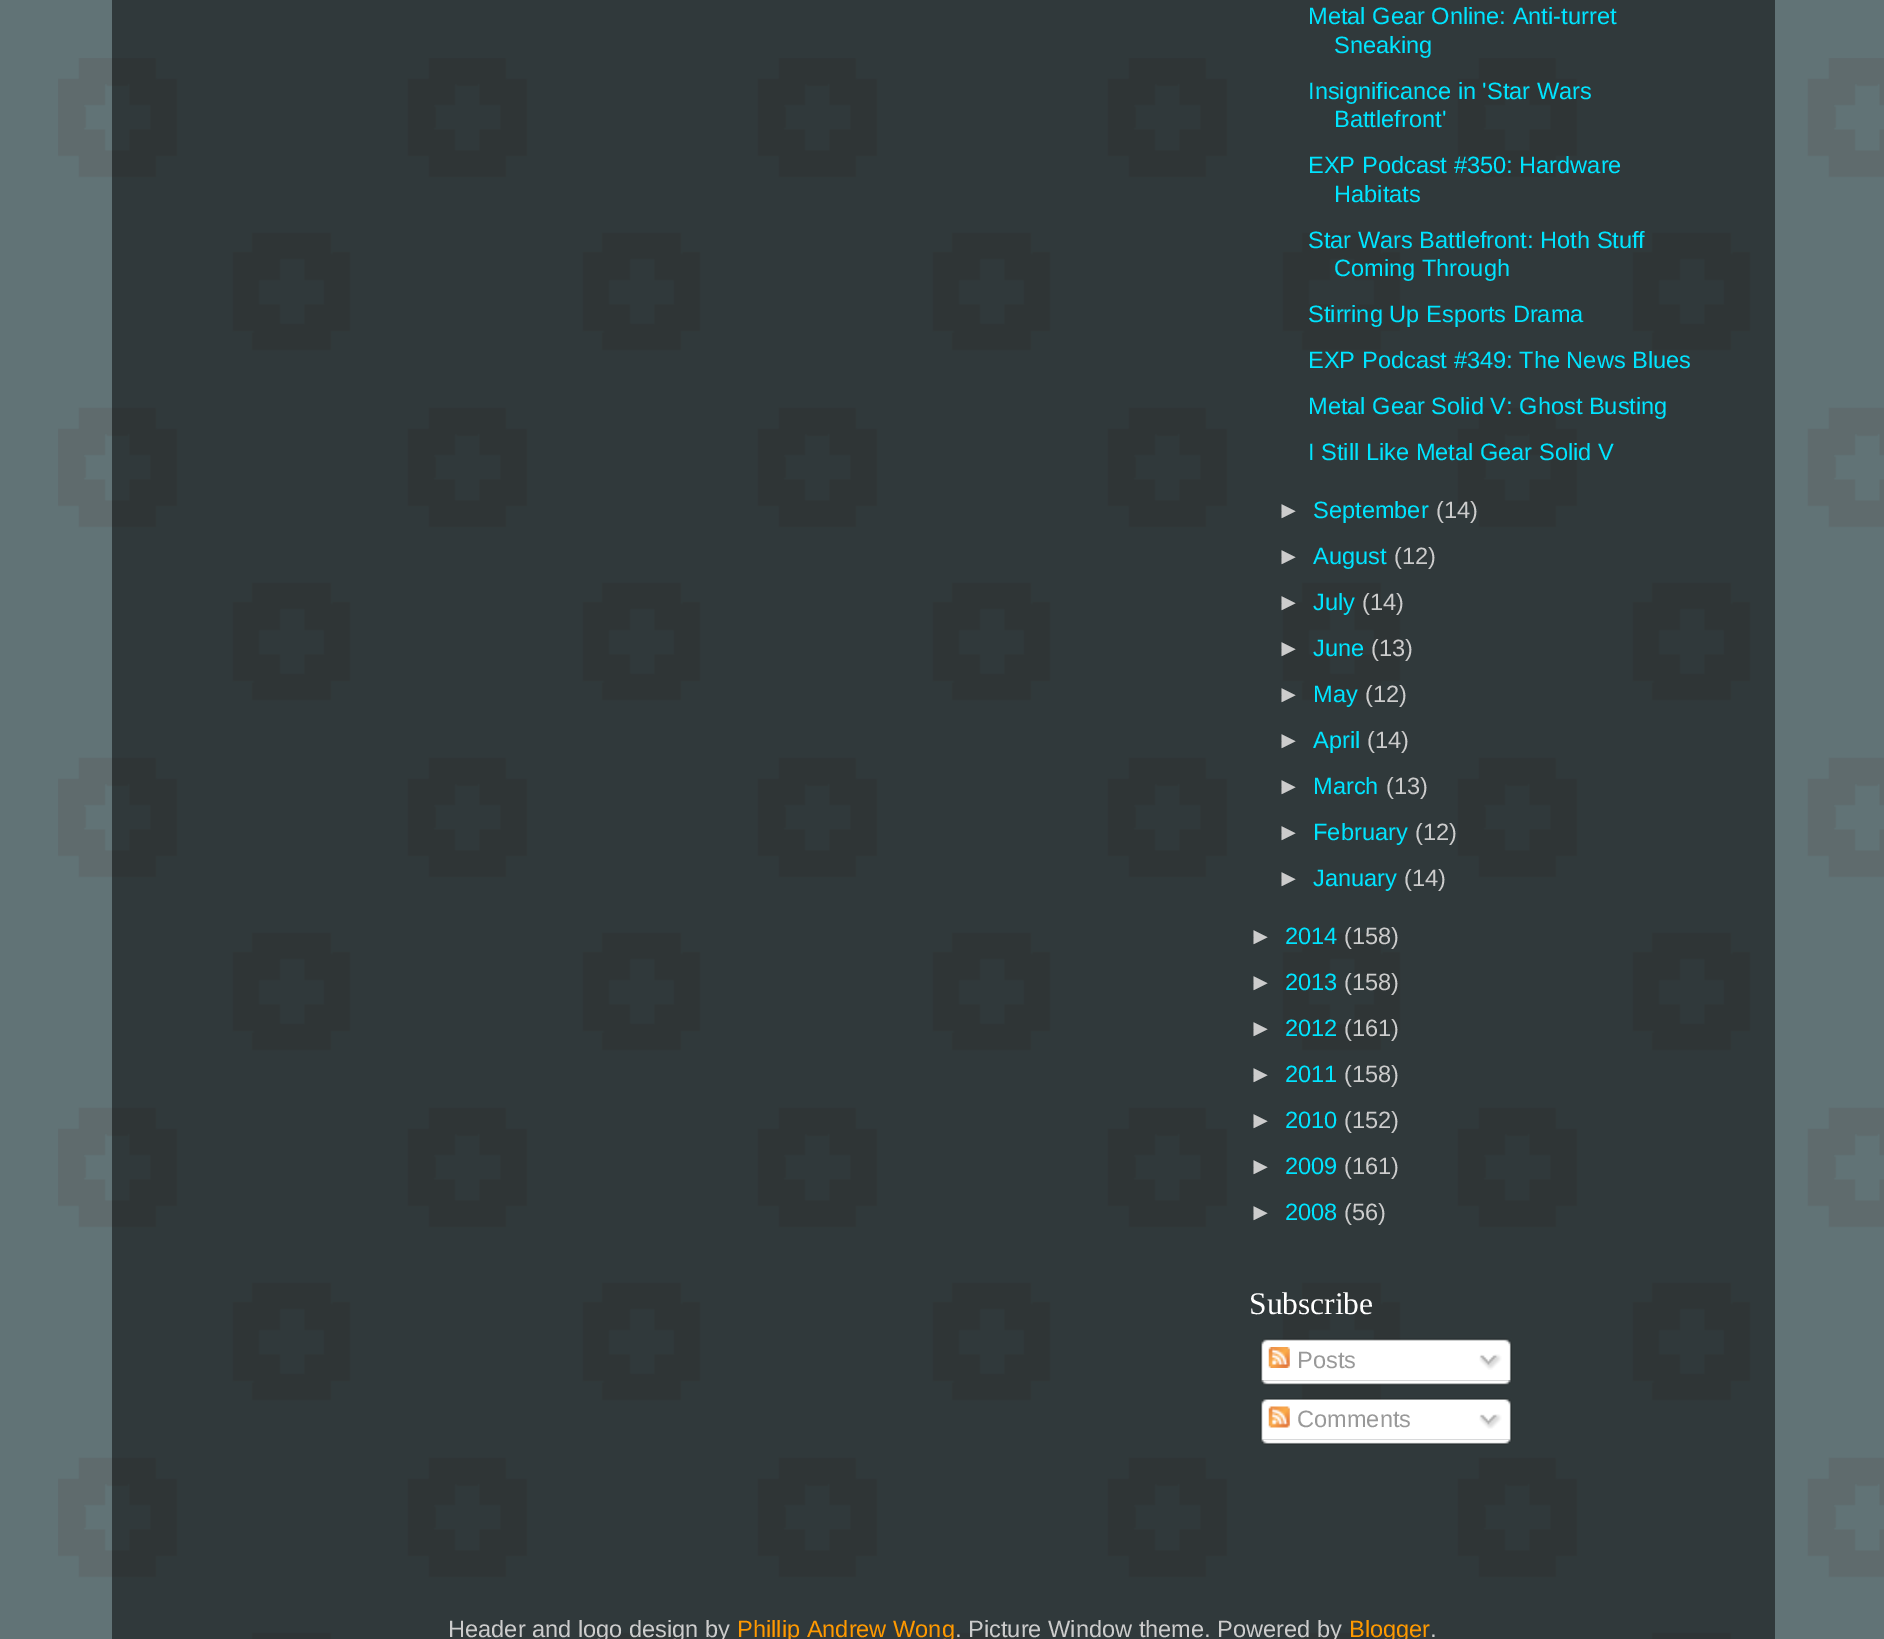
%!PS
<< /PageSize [1884 1639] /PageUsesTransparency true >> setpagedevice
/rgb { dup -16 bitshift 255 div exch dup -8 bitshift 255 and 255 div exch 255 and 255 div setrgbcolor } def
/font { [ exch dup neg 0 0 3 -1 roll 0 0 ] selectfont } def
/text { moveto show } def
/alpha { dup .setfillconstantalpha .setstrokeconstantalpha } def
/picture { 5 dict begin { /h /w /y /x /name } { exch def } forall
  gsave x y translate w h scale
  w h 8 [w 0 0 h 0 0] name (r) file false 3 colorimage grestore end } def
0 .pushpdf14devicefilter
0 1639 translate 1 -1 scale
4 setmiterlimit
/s1 { /LiberationSans-Regular 23.6 font 16#00E4FF rgb } def
/s2 { /LiberationSans-Regular 23.6 font 16#CCCCCC rgb } def
/s3 { /LiberationSerif-Regular 31.5 font 16#FFFFFF rgb } def
/s4 { /LiberationSans-Regular 23.6 font 16#999999 rgb } def
/s5 { /LiberationSans-Regular 23.6 font 16#FF9900 rgb } def
16#617376 rgb
0 0 1884 1639 rectfill
(pic1.raw) 58 58 1826 1581 picture
0.5 alpha
16#000000 rgb
112 0 1663 1639 rectfill
1 alpha
s1
(Metal Gear Online: Anti-turret) 1308 24 text
(Sneaking) 1334 53 text
(Insignificance in 'Star Wars) 1308 99 text
(Battlefront') 1334 127 text
(EXP Podcast #350: Hardware) 1308 173 text
(Habitats) 1334 202 text
(Star Wars Battlefront: Hoth Stuff) 1308 248 text
(Coming Through) 1334 276 text
(Stirring Up Esports Drama) 1308 322 text
(EXP Podcast #349: The News Blues) 1308 368 text
(Metal Gear Solid V: Ghost Busting) 1308 414 text
(I Still Like Metal Gear Solid V) 1308 460 text
s2
(►) 1277 518 text
s1
(September) 1313 518 text
s2
(\(14\)) 1436 518 text
(►) 1277 564 text
s1
(August) 1313 564 text
s2
(\(12\)) 1394 564 text
(►) 1277 610 text
s1
(July) 1313 610 text
s2
(\(14\)) 1362 610 text
(►) 1277 656 text
s1
(June) 1313 656 text
s2
(\(13\)) 1371 656 text
(►) 1277 702 text
s1
(May) 1313 702 text
s2
(\(12\)) 1365 702 text
(►) 1277 748 text
s1
(April) 1313 748 text
s2
(\(14\)) 1367 748 text
(►) 1277 794 text
s1
(March) 1313 794 text
s2
(\(13\)) 1386 794 text
(►) 1277 840 text
s1
(February) 1313 840 text
s2
(\(12\)) 1415 840 text
(►) 1277 886 text
s1
(January) 1313 886 text
s2
(\(14\)) 1404 886 text
(►) 1249 944 text
s1
(2014) 1285 944 text
s2
(\(158\)) 1344 944 text
(►) 1249 990 text
s1
(2013) 1285 990 text
s2
(\(158\)) 1344 990 text
(►) 1249 1036 text
s1
(2012) 1285 1036 text
s2
(\(161\)) 1344 1036 text
(►) 1249 1082 text
s1
(2011) 1285 1082 text
s2
(\(158\)) 1344 1082 text
(►) 1249 1128 text
s1
(2010) 1285 1128 text
s2
(\(152\)) 1344 1128 text
(►) 1249 1174 text
s1
(2009) 1285 1174 text
s2
(\(161\)) 1344 1174 text
(►) 1249 1220 text
s1
(2008) 1285 1220 text
s2
(\(56\)) 1344 1220 text
s3
(Subscribe) 1249 1314 text
(pic2.raw) 1260 1338 252 43 picture
(pic3.raw) 1268 1347 22 21 picture
s4
(Posts) 1297 1368 text
(pic4.raw) 1479 1354 23 16 picture
(pic5.raw) 1261 1380 251 6 picture
(pic6.raw) 1260 1398 252 42 picture
(pic7.raw) 1268 1406 22 22 picture
(Comments) 1297 1427 text
(pic8.raw) 1479 1414 23 15 picture
(pic9.raw) 1260 1439 252 6 picture
s2
(Header and logo design by) 448 1637 text
s5
(Phillip Andrew Wong) 737 1637 text
s2
(. Picture Window theme. Powered by) 955 1637 text
s5
(Blogger) 1349 1637 text
s2
(.) 1430 1637 text
.poppdf14devicefilter showpage
